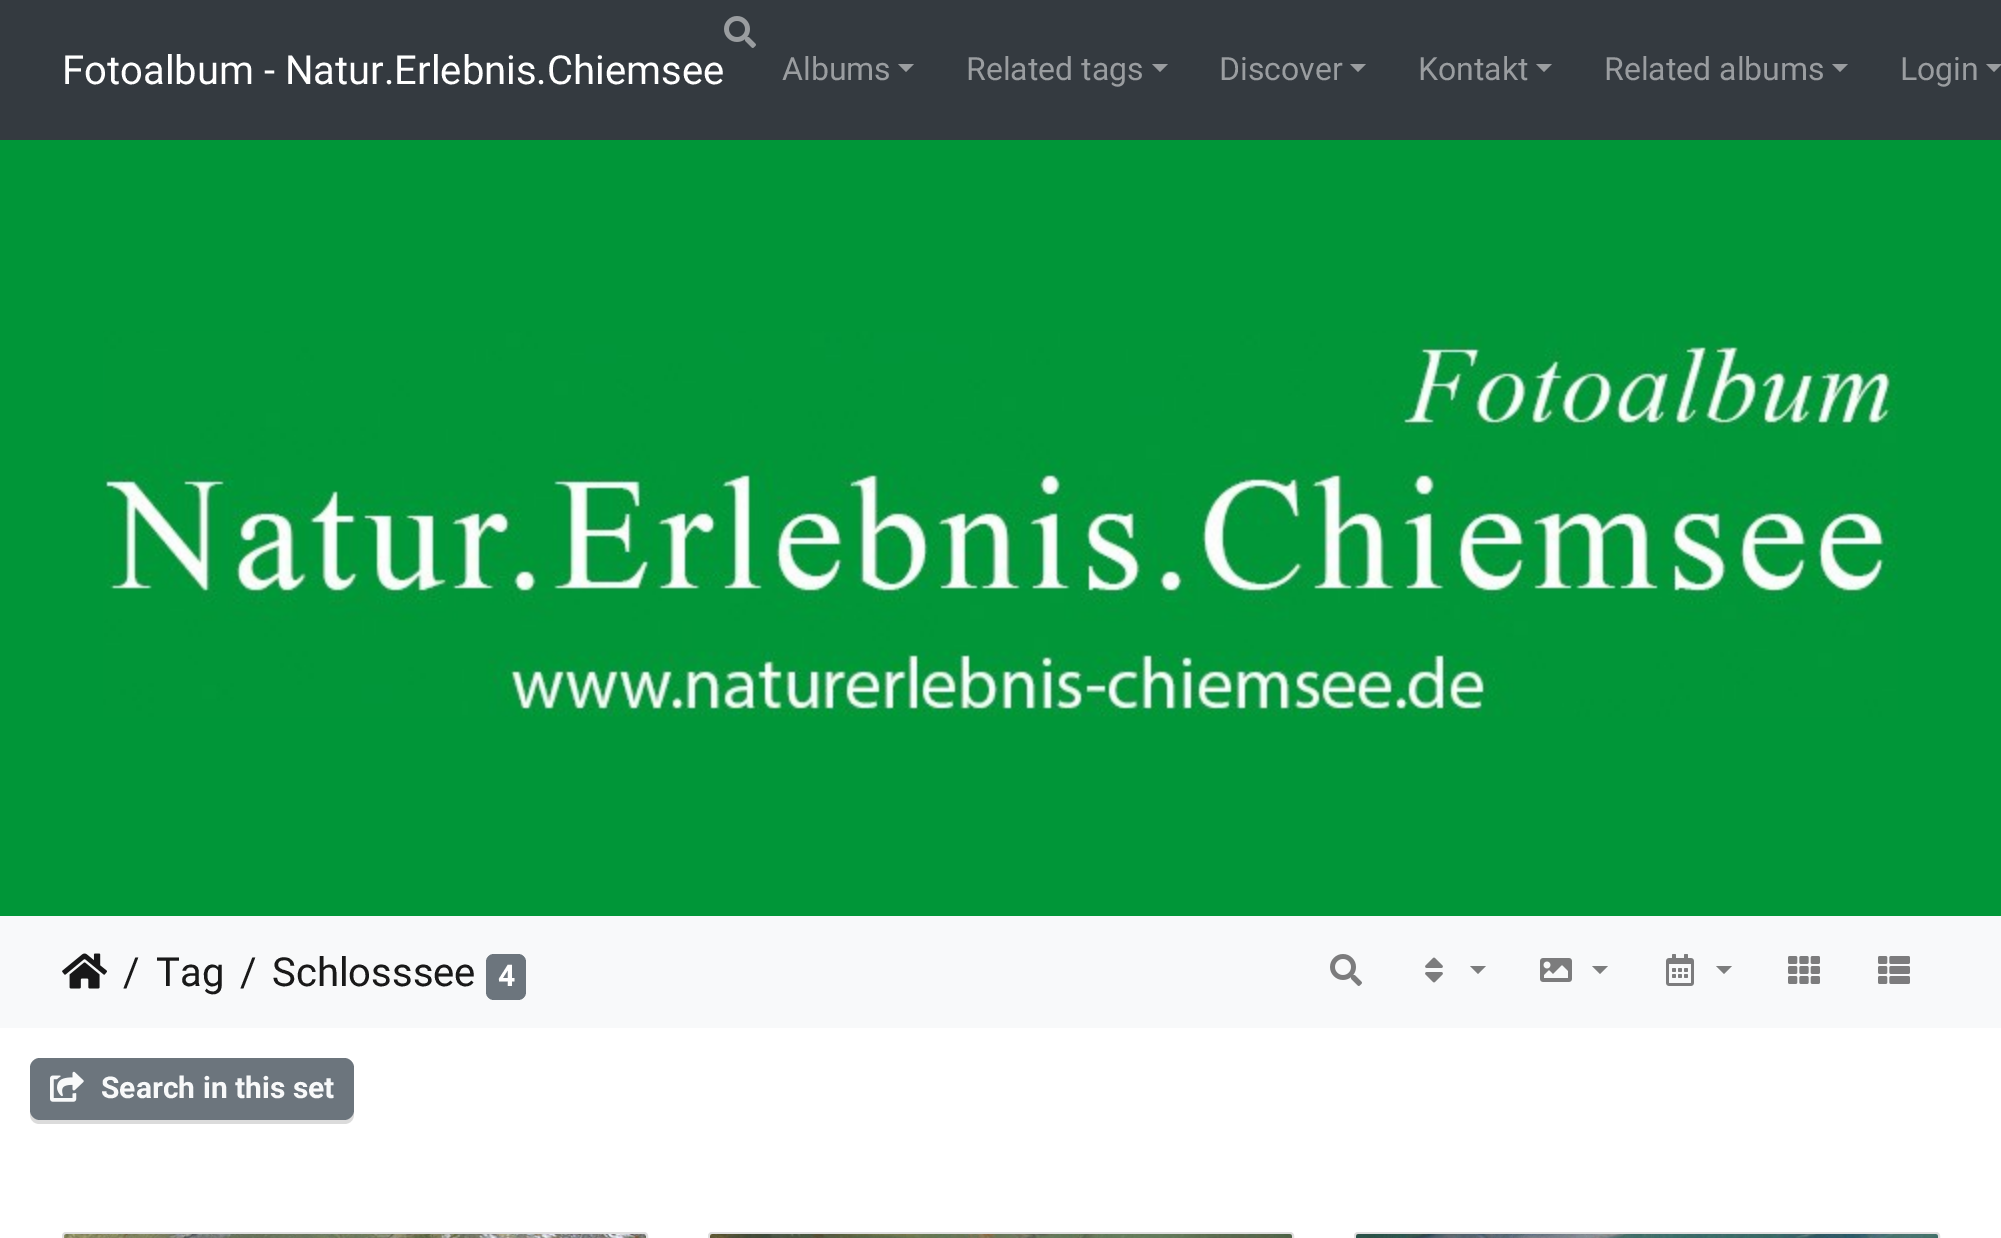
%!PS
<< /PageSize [2001 1238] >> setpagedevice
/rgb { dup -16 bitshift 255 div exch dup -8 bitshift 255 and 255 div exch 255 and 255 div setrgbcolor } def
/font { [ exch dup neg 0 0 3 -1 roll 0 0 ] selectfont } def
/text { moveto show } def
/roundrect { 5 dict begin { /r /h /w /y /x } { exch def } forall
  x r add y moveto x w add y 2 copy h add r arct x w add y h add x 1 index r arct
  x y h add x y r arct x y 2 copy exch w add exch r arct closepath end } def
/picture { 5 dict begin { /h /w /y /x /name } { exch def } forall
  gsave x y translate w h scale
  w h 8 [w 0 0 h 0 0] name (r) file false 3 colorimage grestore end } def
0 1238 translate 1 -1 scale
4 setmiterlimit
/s1 { /Roboto-Regular 40 font 16#FFFFFF rgb } def
/s2 { /Roboto-Regular 32 font 16#9A9DA0 rgb } def
/s3 { /Roboto-Regular 40 font 16#191919 rgb } def
/s4 { /Roboto-Bold 30 font 16#FFFFFF rgb } def
/s5 { /Roboto-Bold 30 font 16#F8F9FA rgb } def
16#FFFFFF rgb
0 0 2001 1238 rectfill
16#343A40 rgb
0 0 2001 140 rectfill
s1
(Fotoalbum - Natur.Erlebnis.Chiemsee) 62 84 text
(pic1.raw) 724 16 32 32 picture
s2
(Albums) 782 80 text
898 64 moveto 914 64 lineto 906 72 lineto closepath fill
(Related tags) 966 80 text
1152 64 moveto 1168 64 lineto 1160 72 lineto closepath fill
(Discover) 1219 80 text
1350 64 moveto 1366 64 lineto 1358 72 lineto closepath fill
(Kontakt) 1418 80 text
1536 64 moveto 1552 64 lineto 1544 72 lineto closepath fill
(Related albums) 1604 80 text
1832 64 moveto 1848 64 lineto 1840 72 lineto closepath fill
(Login) 1900 80 text
1986 64 moveto 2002 64 lineto 1994 72 lineto closepath fill
16#009638 rgb
0 140 2001 776 rectfill
(pic2.raw) 103 331 1795 386 picture
16#F8F9FA rgb
0 916 2001 112 rectfill
(pic3.raw) 62 953 45 36 picture
s3
(/) 123 986 text
(Tag) 156 986 text
(/) 240 986 text
(Schlosssee) 272 986 text
16#6C757D rgb
486 954 40 46 8 roundrect fill
s4
(4) 498 986 text
(pic4.raw) 1330 954 32 32 picture
(pic5.raw) 1425 957 18 26 picture
16#7C7D7D rgb
1470 966 moveto 1486 966 lineto 1478 974 lineto closepath fill
(pic6.raw) 1540 958 32 24 picture
1592 966 moveto 1608 966 lineto 1600 974 lineto closepath fill
(pic7.raw) 1666 954 28 32 picture
1716 966 moveto 1732 966 lineto 1724 974 lineto closepath fill
(pic8.raw) 1788 956 32 28 picture
(pic9.raw) 1878 956 32 28 picture
16#DBDBDB rgb
30 1110 moveto 30 1114 lineto 30 1120 34 1124 40 1124 curveto 344 1124 lineto 350 1124 354 1120 354 1114 curveto 354 1110 lineto 354 1116 350 1120 344 1120 curveto 40 1120 lineto 34 1120 30 1116 30 1110 curveto closepath fill
16#6C757D rgb
30 1058 324 62 10 roundrect fill
(pic10.raw) 50 1071 34 31 picture
s5
(Search in this set) 101 1098 text
16#DFDFDF rgb
2 setlinewidth
63 1233 584 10 3 roundrect stroke
(pic11.raw) 64 1234 582 4 picture
709 1233 584 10 3 roundrect stroke
(pic12.raw) 710 1234 582 4 picture
1355 1233 584 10 3 roundrect stroke
(pic13.raw) 1356 1234 582 4 picture
showpage
